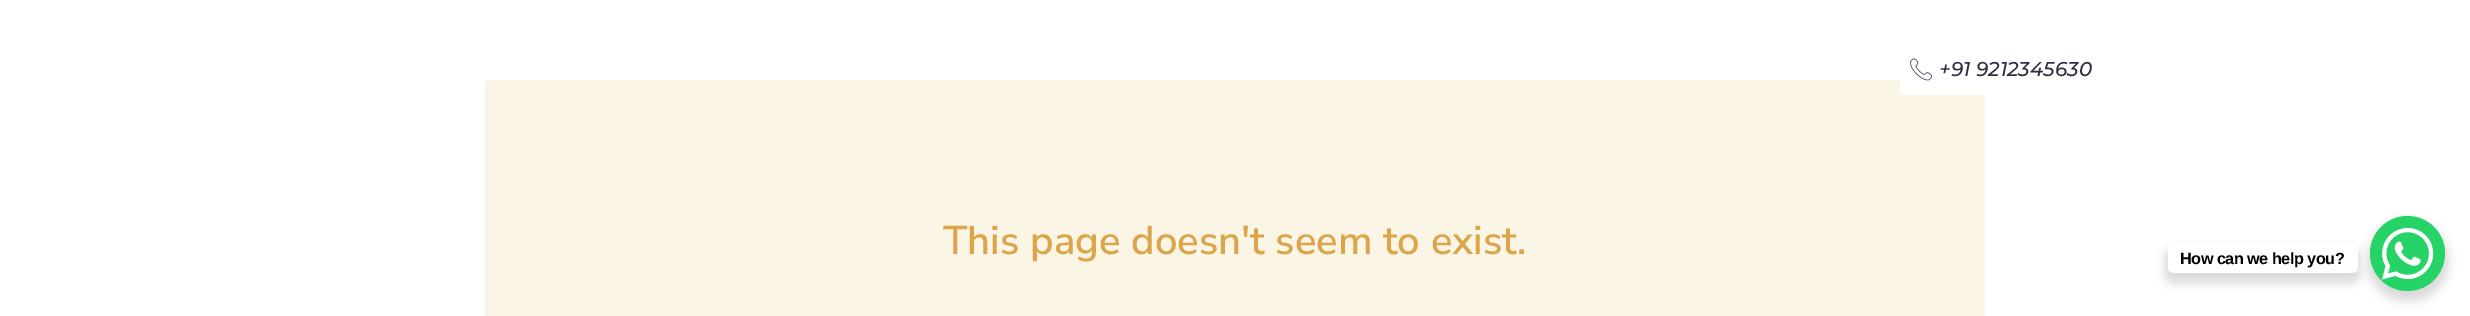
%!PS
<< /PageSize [2470 316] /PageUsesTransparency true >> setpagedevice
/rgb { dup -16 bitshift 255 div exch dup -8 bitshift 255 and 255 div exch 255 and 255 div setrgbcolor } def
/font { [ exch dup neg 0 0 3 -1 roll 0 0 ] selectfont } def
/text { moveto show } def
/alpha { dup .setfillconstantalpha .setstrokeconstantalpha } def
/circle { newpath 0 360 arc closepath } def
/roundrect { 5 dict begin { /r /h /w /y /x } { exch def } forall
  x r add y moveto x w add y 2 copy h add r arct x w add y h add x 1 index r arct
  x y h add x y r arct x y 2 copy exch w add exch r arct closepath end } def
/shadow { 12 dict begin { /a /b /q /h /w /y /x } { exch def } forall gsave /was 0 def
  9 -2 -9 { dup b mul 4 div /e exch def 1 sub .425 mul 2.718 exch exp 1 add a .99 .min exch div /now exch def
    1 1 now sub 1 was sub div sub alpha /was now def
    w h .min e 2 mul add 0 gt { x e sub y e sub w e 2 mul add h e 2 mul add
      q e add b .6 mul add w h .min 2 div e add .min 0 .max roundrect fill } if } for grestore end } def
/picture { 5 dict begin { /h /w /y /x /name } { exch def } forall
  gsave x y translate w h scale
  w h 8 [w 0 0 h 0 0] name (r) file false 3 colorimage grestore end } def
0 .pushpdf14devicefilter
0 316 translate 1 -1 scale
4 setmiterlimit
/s1 { /Montserrat-MediumItalic 20 font 16#293141 rgb } def
/s2 { /NunitoSans-ExtraLight 40 font 16#DCA54A rgb } def
16#FFFFFF rgb
0 0 2470 316 rectfill
16#FAF5E5 rgb
485 80 1500 236 rectfill
0.99 alpha
16#FFFFFF rgb
1900 45 203 50 5 roundrect fill
1 alpha
(pic1.raw) 1910 58 22 23 picture
s1
(+91 9212345630) 1939 76 text
s2
(This page doesn't seem to exist.) 943 254 text
16#000000 rgb
2368 221 80 80 40 5 0.15 shadow
16#25D366 rgb
2407.5 253.5 37.5 circle fill
16#000000 rgb
2165 249 195 34 9 5 0.15 shadow
16#FFFFFF rgb
2168 244 190 29 6 roundrect fill
/LiberationSans-Bold 16.25 font
16#000000 rgb
2180 264 moveto -0.5 0 (How can we help you?) ashow
(pic2.raw) 2382 227 52 53 picture
.poppdf14devicefilter showpage
